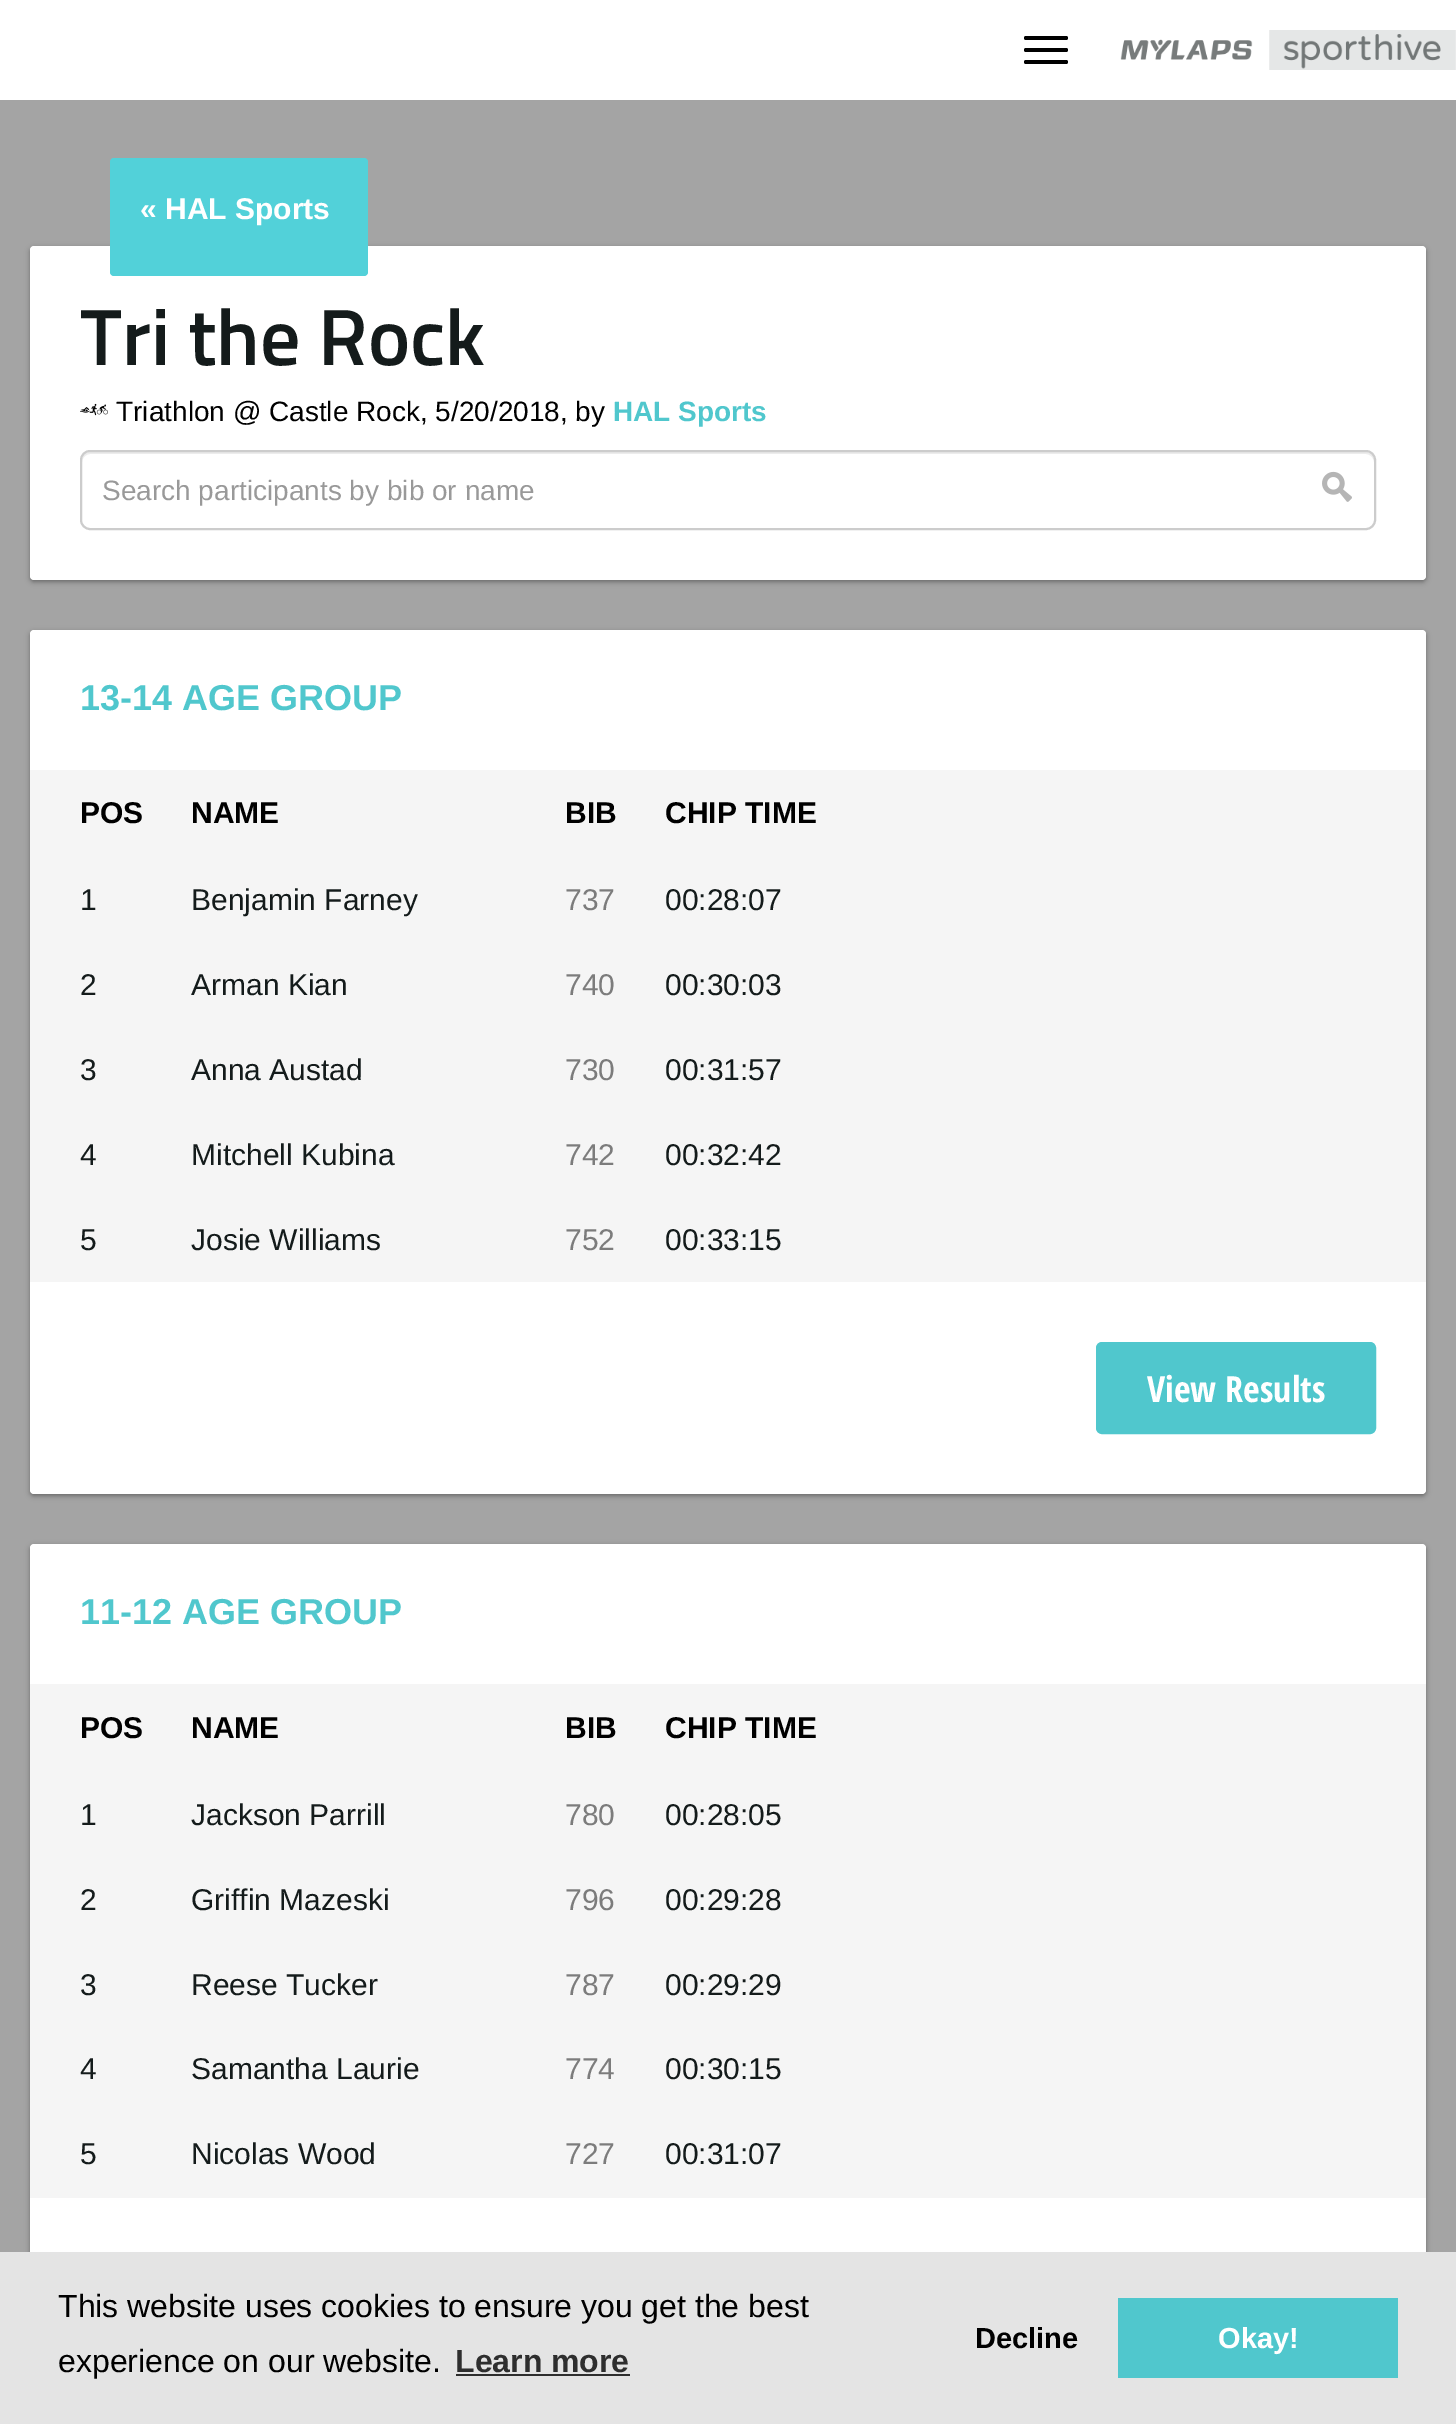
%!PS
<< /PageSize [1456 2424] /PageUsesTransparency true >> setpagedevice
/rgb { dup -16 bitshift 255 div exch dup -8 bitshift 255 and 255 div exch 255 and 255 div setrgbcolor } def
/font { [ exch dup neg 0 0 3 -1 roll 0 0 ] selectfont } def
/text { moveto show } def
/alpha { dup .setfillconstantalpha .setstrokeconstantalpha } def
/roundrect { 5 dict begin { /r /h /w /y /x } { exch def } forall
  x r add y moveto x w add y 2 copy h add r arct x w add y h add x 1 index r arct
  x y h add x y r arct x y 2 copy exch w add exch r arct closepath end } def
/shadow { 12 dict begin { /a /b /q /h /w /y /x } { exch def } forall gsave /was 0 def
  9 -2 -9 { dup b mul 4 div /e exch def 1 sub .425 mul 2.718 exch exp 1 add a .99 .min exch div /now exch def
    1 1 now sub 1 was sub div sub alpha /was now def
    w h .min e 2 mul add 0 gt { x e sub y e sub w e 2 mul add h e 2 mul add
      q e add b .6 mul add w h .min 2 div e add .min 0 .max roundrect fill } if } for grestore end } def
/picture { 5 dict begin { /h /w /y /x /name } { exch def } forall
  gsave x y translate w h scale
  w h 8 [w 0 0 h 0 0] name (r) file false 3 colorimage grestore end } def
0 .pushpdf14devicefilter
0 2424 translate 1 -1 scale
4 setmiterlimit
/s1 { /LiberationSans-Bold 30 font 16#FFFFFF rgb } def
/s2 { /TitilliumWeb-SemiBold 80 font 16#141B1B rgb } def
/s3 { /LiberationSans-Regular 28 font 16#000000 rgb } def
/s4 { /LiberationSans-Bold 28 font 16#50C7CD rgb } def
/s5 { /LiberationSans-Regular 28 font 16#999999 rgb } def
/s6 { /LiberationSans-Bold 36 font 16#50C7CD rgb } def
/s7 { /LiberationSans-Bold 30 font 16#000000 rgb } def
/s8 { /LiberationSans-Regular 30 font 16#141B1B rgb } def
/s9 { /LiberationSans-Regular 30 font 16#7C7C7C rgb } def
/s10 { /OpenSansCondensed-Bold 36 font 16#FFFFFF rgb } def
/s11 { /LiberationSans-Regular 32 font 16#000000 rgb } def
/s12 { /LiberationSans-Bold 32 font 16#2E2E2E rgb } def
/s13 { /LiberationSans-Bold 29 font 16#000000 rgb } def
/s14 { /LiberationSans-Bold 29 font 16#FFFFFF rgb } def
16#A4A4A4 rgb
0 0 1456 2424 rectfill
16#FFFFFF rgb
0 0 1456 100 rectfill
16#000000 rgb
1024 36 44 4 2 roundrect fill
1024 48 44 4 2 roundrect fill
1024 60 44 4 2 roundrect fill
(pic1.raw) 1120 30 336 40 picture
30 248 1396 334 4 2 0.24 shadow
30 248 1396 334 4 3 0.12 shadow
16#FFFFFF rgb
30 246 1396 334 4 roundrect fill
16#52D1D9 rgb
110 158 258 118 4 roundrect fill
s1
(« HAL Sports) 140 219 text
s2
(Tri the Rock) 80 365 text
(pic2.raw) 80 403 28 13 picture
s3
(Triathlon @ Castle Rock, 5/20/2018, by) 116 421 text
s4
(HAL Sports) 613 421 text
16#ECECEC rgb
90 454 moveto 1366 454 lineto 1370 454 1374 458 1374 462 curveto 1374 460 lineto 1374 456 1370 452 1366 452 curveto 90 452 lineto 86 452 82 456 82 460 curveto 82 462 lineto 82 458 86 454 90 454 curveto closepath fill
16#CCCCCC rgb
2 setlinewidth
81 451 1294 78 9 roundrect stroke
s5
(Search participants by bib or name) 102 500 text
(pic3.raw) 1322 471 30 31 picture
16#000000 rgb
30 632 1396 864 4 2 0.24 shadow
30 632 1396 864 4 3 0.12 shadow
16#FFFFFF rgb
30 630 1396 864 4 roundrect fill
s6
(13-14 AGE GROUP) 80 710 text
16#F5F5F5 rgb
30 770 1396 512 rectfill
s7
(POS) 80 823 text
(NAME) 191 823 text
(BIB) 565 823 text
(CHIP TIME) 665 823 text
s8
(1) 80 910 text
(Benjamin Farney) 191 910 text
s9
(737) 565 910 text
s8
(00:28:07) 665 910 text
(2) 80 995 text
(Arman Kian) 191 995 text
s9
(740) 565 995 text
s8
(00:30:03) 665 995 text
(3) 80 1080 text
(Anna Austad) 191 1080 text
s9
(730) 565 1080 text
s8
(00:31:57) 665 1080 text
(4) 80 1165 text
(Mitchell Kubina) 191 1165 text
s9
(742) 565 1165 text
s8
(00:32:42) 665 1165 text
(5) 80 1250 text
(Josie Williams) 191 1250 text
s9
(752) 565 1250 text
s8
(00:33:15) 665 1250 text
16#50C7CD rgb
1098 1344 276 88 4 roundrect gsave fill grestore
4 setlinewidth
stroke
s10
(View Results) 1147 1402 text
16#000000 rgb
30 1546 1396 866 4 2 0.24 shadow
30 1546 1396 866 4 3 0.12 shadow
16#FFFFFF rgb
30 1544 1396 866 4 roundrect fill
s6
(11-12 AGE GROUP) 80 1624 text
16#F5F5F5 rgb
30 1684 1396 514 rectfill
s7
(POS) 80 1738 text
(NAME) 191 1738 text
(BIB) 565 1738 text
(CHIP TIME) 665 1738 text
s8
(1) 80 1825 text
(Jackson Parrill) 191 1825 text
s9
(780) 565 1825 text
s8
(00:28:05) 665 1825 text
(2) 80 1910 text
(Griffin Mazeski) 191 1910 text
s9
(796) 565 1910 text
s8
(00:29:28) 665 1910 text
(3) 80 1995 text
(Reese Tucker) 191 1995 text
s9
(787) 565 1995 text
s8
(00:29:29) 665 1995 text
(4) 80 2079 text
(Samantha Laurie) 191 2079 text
s9
(774) 565 2079 text
s8
(00:30:15) 665 2079 text
(5) 80 2164 text
(Nicolas Wood) 191 2164 text
s9
(727) 565 2164 text
s8
(00:31:07) 665 2164 text
16#E4E4E4 rgb
0 2252 1456 172 rectfill
s11
(This website uses cookies to ensure you get the best) 58 2317 text
(experience on our website.) 58 2372 text
s12
(Learn more) 455 2372 text
456 2374 174 2 rectfill
s13
(Decline) 975 2348 text
16#50C7CD rgb
1118 2298 280 80 rectfill
s14
(Okay!) 1218 2348 text
.poppdf14devicefilter showpage
